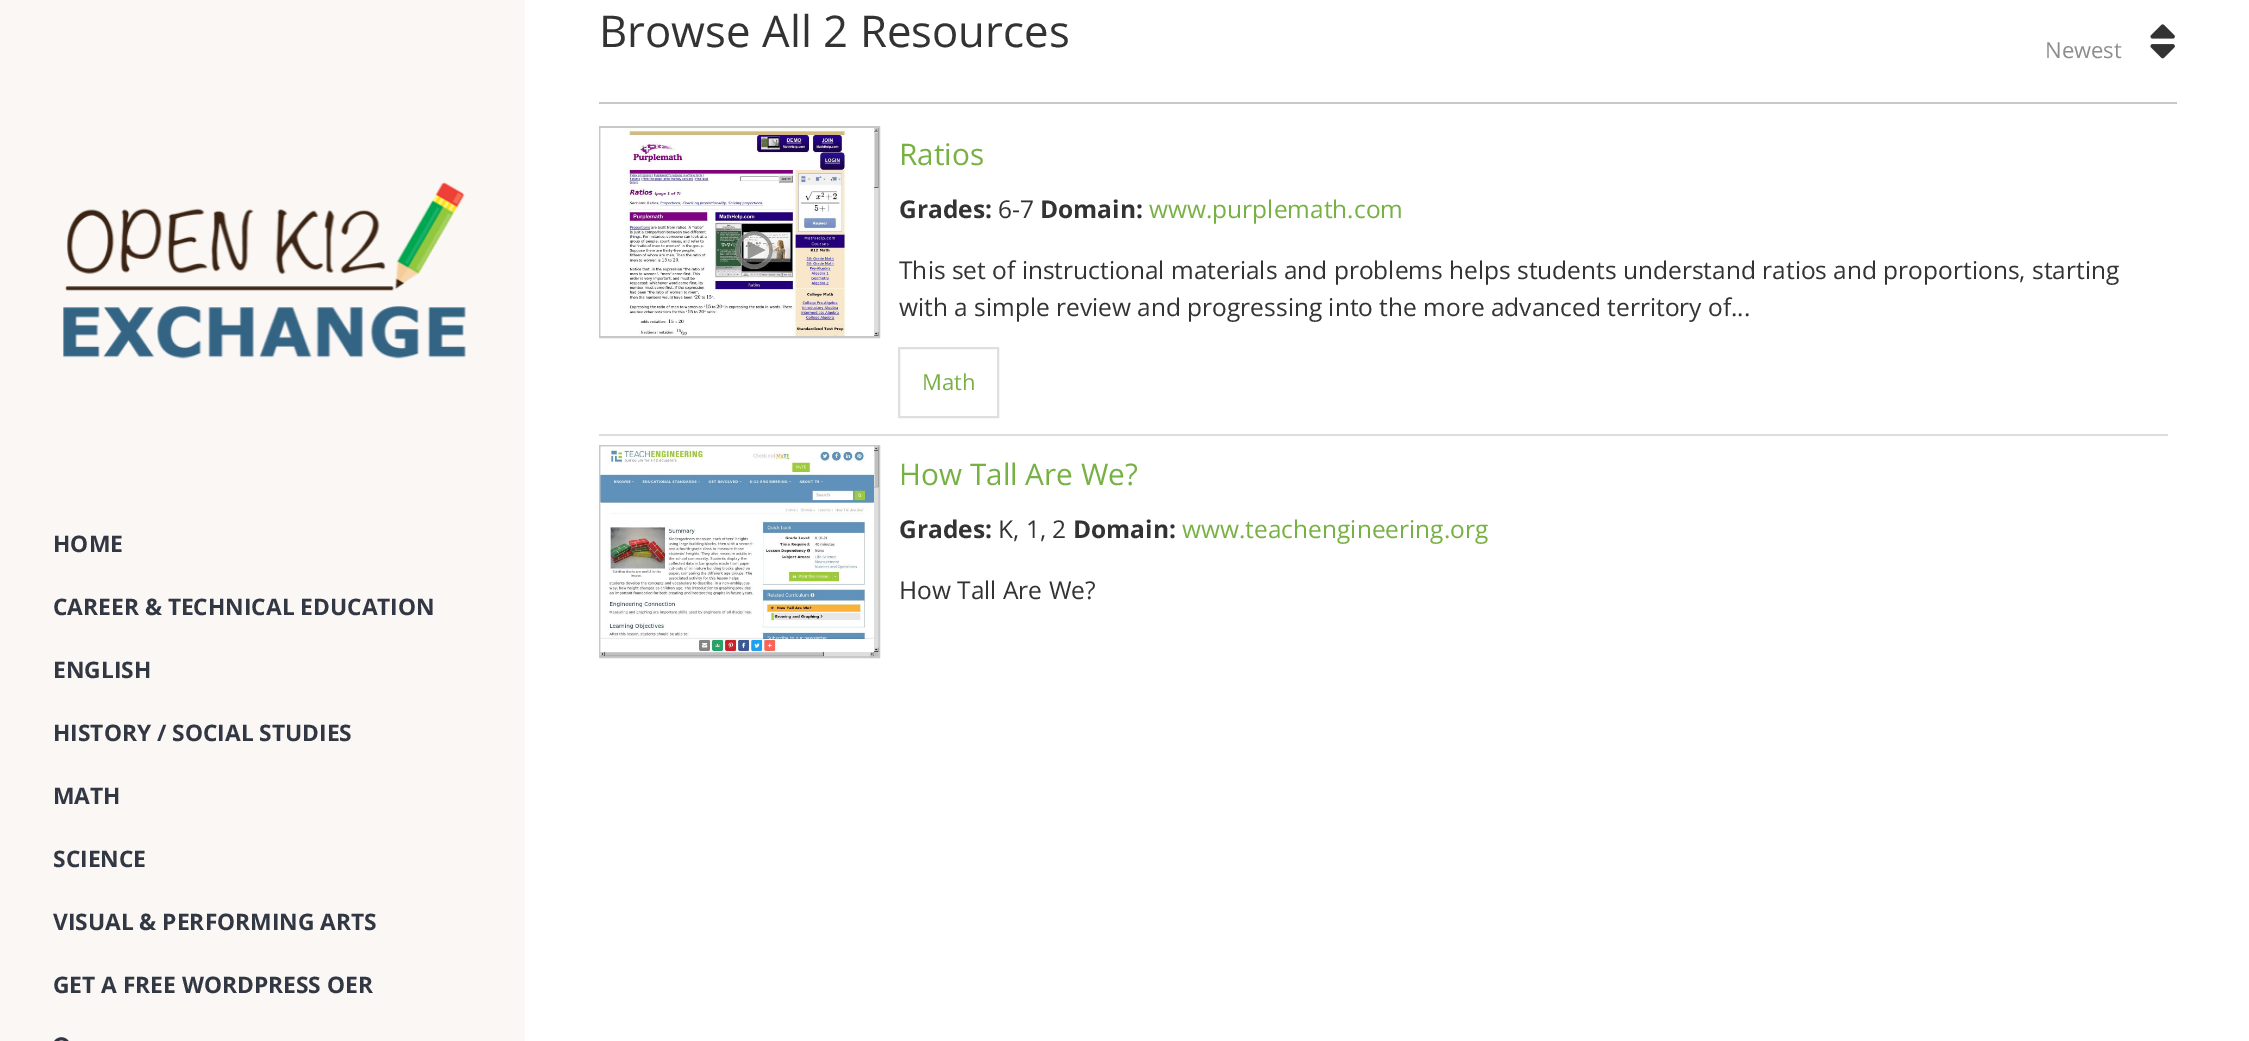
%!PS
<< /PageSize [2249 1041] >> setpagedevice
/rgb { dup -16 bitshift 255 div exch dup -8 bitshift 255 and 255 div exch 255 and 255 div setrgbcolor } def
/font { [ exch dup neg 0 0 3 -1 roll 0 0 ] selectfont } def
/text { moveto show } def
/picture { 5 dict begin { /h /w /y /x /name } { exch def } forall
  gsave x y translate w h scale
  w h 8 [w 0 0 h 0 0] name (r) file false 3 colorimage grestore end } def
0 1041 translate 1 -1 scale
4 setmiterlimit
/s1 { /OpenSans-Regular 43.75 font 16#333333 rgb } def
/s2 { /OpenSans-Regular 22 font 16#8D8D8D rgb } def
/s3 { /OpenSans-Regular 29.75 font 16#77B143 rgb } def
/s4 { /OpenSans-Bold 24.5 font 16#333333 rgb } def
/s5 { /OpenSans-Regular 24.5 font 16#333333 rgb } def
/s6 { /OpenSans-Regular 24.5 font 16#77B143 rgb } def
/s7 { /OpenSans-Regular 22 font 16#77B143 rgb } def
/s8 { /OpenSans-Bold 22.75 font 16#313743 rgb } def
16#FFFFFF rgb
0 0 2249 1041 rectfill
s1
(Browse All 2 Resources) 599 47 text
s2
(Newest) 2045 58 text
(pic1.raw) 2150 24 25 35 picture
16#C8C8C8 rgb
599 102 1578 2 rectfill
2 setlinewidth
600 127 279 210 rectstroke
(pic2.raw) 600 128 279 208 picture
s3
(Ratios) 899 165 text
s4
(Grades:) 899 218 text
s5
(6-7) 998 218 text
s4
(Domain:) 1040 218 text
s6
(www.purplemath.com) 1149 218 text
s5
(This set of instructional materials and problems helps students understand ratios and proportions, starting) 899 279 text
(with a simple review and progressing into the more advanced territory of...) 899 316 text
16#E0DEDE rgb
899 348 99 69 rectstroke
s7
(Math) 922 390 text
16#DDDDDD rgb
599 434 1569 2 rectfill
16#C8C8C8 rgb
600 446 279 211 rectstroke
(pic3.raw) 600 446 279 211 picture
s3
(How Tall Are We?) 899 485 text
s4
(Grades:) 899 538 text
s5
(K, 1, 2) 998 538 text
s4
(Domain:) 1073 538 text
s6
(www.teachengineering.org) 1182 538 text
s5
(How Tall Are We?) 899 599 text
16#FBF7F4 rgb
0 0 525 1041 rectfill
(pic4.raw) 63 182 403 177 picture
s8
(HOME) 53 552 text
(CAREER & TECHNICAL EDUCATION) 53 615 text
(ENGLISH) 53 678 text
(HISTORY / SOCIAL STUDIES) 53 741 text
(MATH) 53 804 text
(SCIENCE) 53 867 text
(VISUAL & PERFORMING ARTS) 53 930 text
(GET A FREE WORDPRESS OER) 53 993 text
(pic5.raw) 54 1037 15 4 picture
showpage
